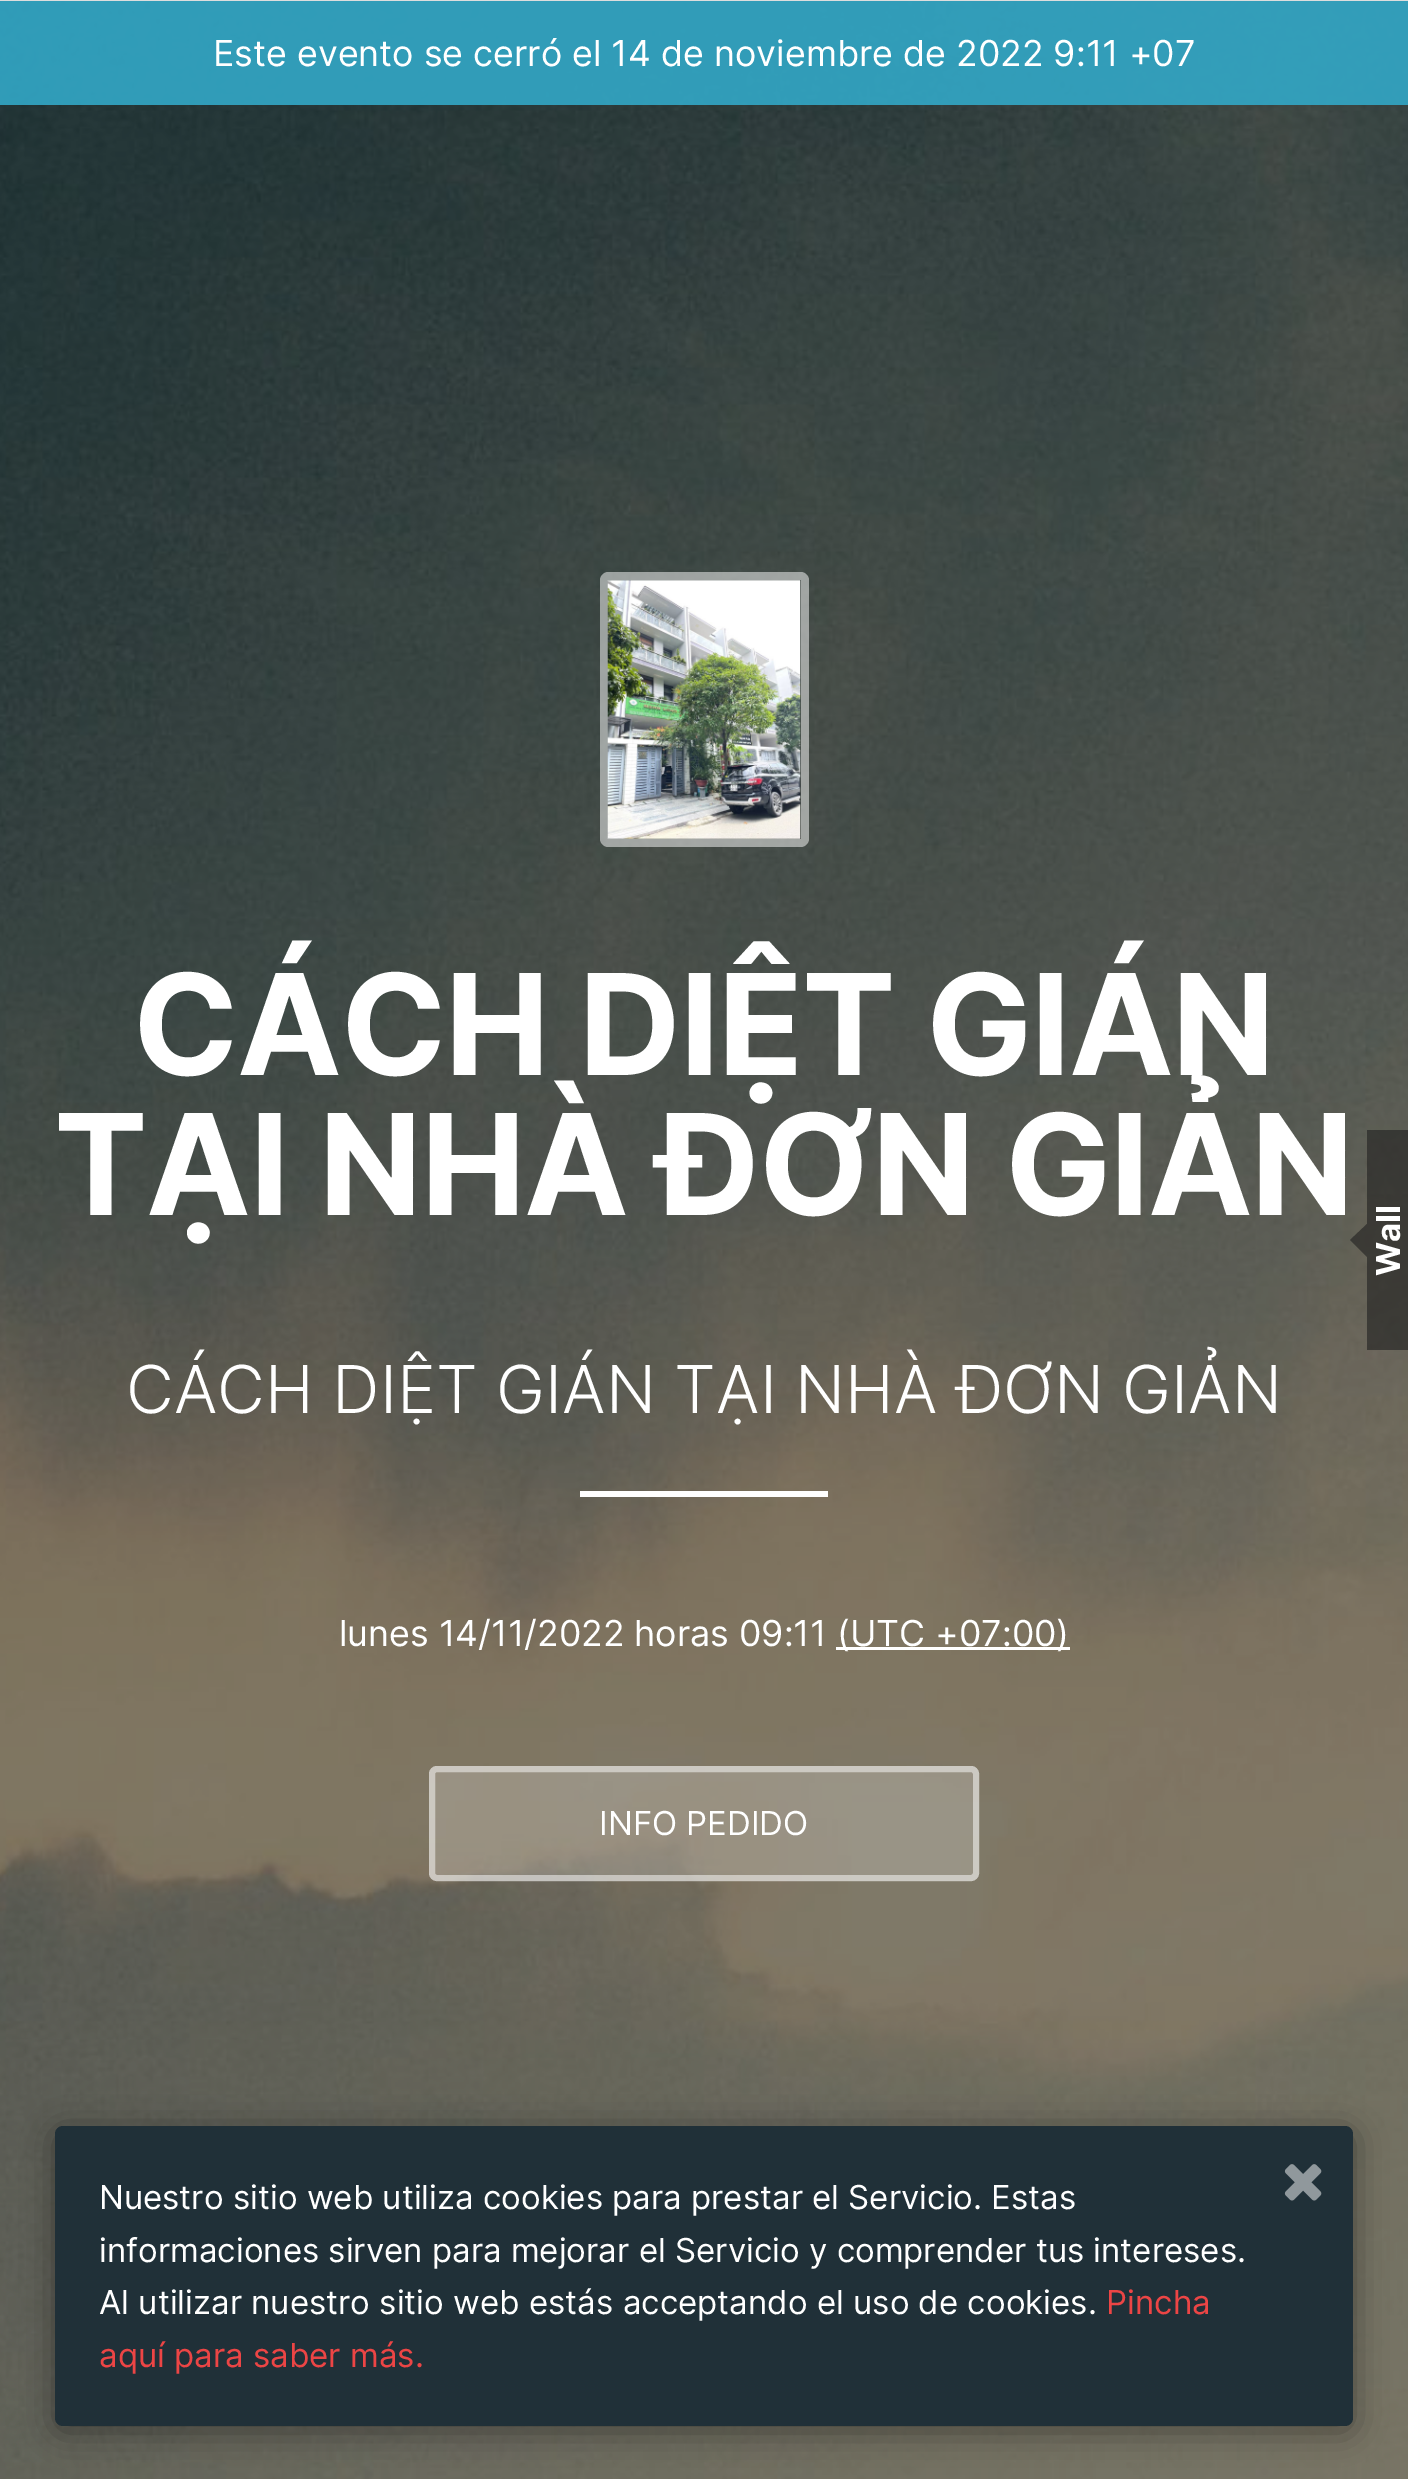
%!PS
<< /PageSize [1408 2479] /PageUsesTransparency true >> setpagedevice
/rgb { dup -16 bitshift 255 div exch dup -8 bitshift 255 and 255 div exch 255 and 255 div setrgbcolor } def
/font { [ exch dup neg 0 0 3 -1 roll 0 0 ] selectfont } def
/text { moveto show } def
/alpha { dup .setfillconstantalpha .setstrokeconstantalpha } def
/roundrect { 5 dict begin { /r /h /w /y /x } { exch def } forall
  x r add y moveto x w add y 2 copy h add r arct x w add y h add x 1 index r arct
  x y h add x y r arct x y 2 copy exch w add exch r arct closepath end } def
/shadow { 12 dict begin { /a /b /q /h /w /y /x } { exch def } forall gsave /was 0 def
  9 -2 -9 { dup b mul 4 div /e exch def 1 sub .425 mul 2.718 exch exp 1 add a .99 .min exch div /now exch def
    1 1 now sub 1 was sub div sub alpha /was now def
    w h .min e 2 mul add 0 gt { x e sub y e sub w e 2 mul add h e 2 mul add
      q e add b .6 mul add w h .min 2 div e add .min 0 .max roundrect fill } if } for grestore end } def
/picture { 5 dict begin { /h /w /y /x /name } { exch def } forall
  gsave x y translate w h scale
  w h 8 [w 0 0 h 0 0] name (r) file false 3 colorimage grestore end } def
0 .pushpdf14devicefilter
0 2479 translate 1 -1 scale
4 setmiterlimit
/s1 { /Inter-Regular 35.75 font 16#FFFFFF rgb } def
/s2 { /Inter-Light 66 font 16#FFFFFF rgb } def
/s3 { /Inter-Regular 33 font 16#FFFFFF rgb } def
/s4 { /Inter-Regular 33 font 16#EC4545 rgb } def
16#FFFFFF rgb
0 0 1408 2479 rectfill
16#DDDDDD rgb
0 0 1408 1 rectfill
(pic1.raw) 0 1 1408 2478 picture
0.9 alpha
16#32A7C6 rgb
0 1 1408 104 rectfill
1 alpha
s1
(Este evento se cerró el 14 de noviembre de 2022 9:11 +07) 213 66 text
0.5 alpha
608 572 moveto 604 572 600 576 600 580 curveto 600 839 lineto 600 843 604 847 608 847 curveto 801 847 lineto 805 847 809 843 809 839 curveto 809 580 lineto 809 576 805 572 801 572 curveto closepath 608 580 moveto 608 839 lineto 801 839 lineto 801 580 lineto closepath eofill
1 alpha
(pic2.raw) 607 580 194 259 picture
/Inter-Bold 140.25 font
133 1075 moveto -1.4 0 (CÁCH DIỆT GIÁN) ashow
54 1215 moveto -1.4 0 (TẠI NHÀ ĐƠN GIẢN) ashow
s2
(CÁCH DIỆT GIÁN TẠI NHÀ ĐƠN GIẢN) 126 1413 text
580 1491 248 6 rectfill
s1
(lunes 14/11/2022 horas 09:11) 339 1646 text
836 1647 234 3 rectfill
(\(UTC +07:00\)) 837 1646 text
0.2 alpha
429 1766 550 115 8 roundrect fill
0.5 alpha
6 setlinewidth
432 1769 544 109 5 roundrect stroke
1 alpha
s3
(INFO PEDIDO) 599 1835 text
0.6 alpha
16#1F1F1F rgb
1367 1130 41 220 rectfill
1367 1224 moveto 1367 1257 lineto 1350 1240 lineto closepath fill
/Inter-Bold 33 font
1 alpha
16#FFFFFF rgb
gsave 1400 1276 translate -90 rotate 0 0 moveto (Wall) show grestore
16#000000 rgb
55 2131 1298 300 8 16.5 0.4 shadow
16#203038 rgb
55 2126 1298 300 8 roundrect fill
s3
(Nuestro sitio web utiliza cookies para prestar el Servicio. Estas) 99 2209 text
(informaciones sirven para mejorar el Servicio y comprender tus intereses.) 99 2262 text
(Al utilizar nuestro sitio web estás acceptando el uso de cookies.) 99 2314 text
s4
(Pincha) 1106 2314 text
(aquí para saber más.) 99 2367 text
(pic3.raw) 1284 2164 38 37 picture
.poppdf14devicefilter showpage
